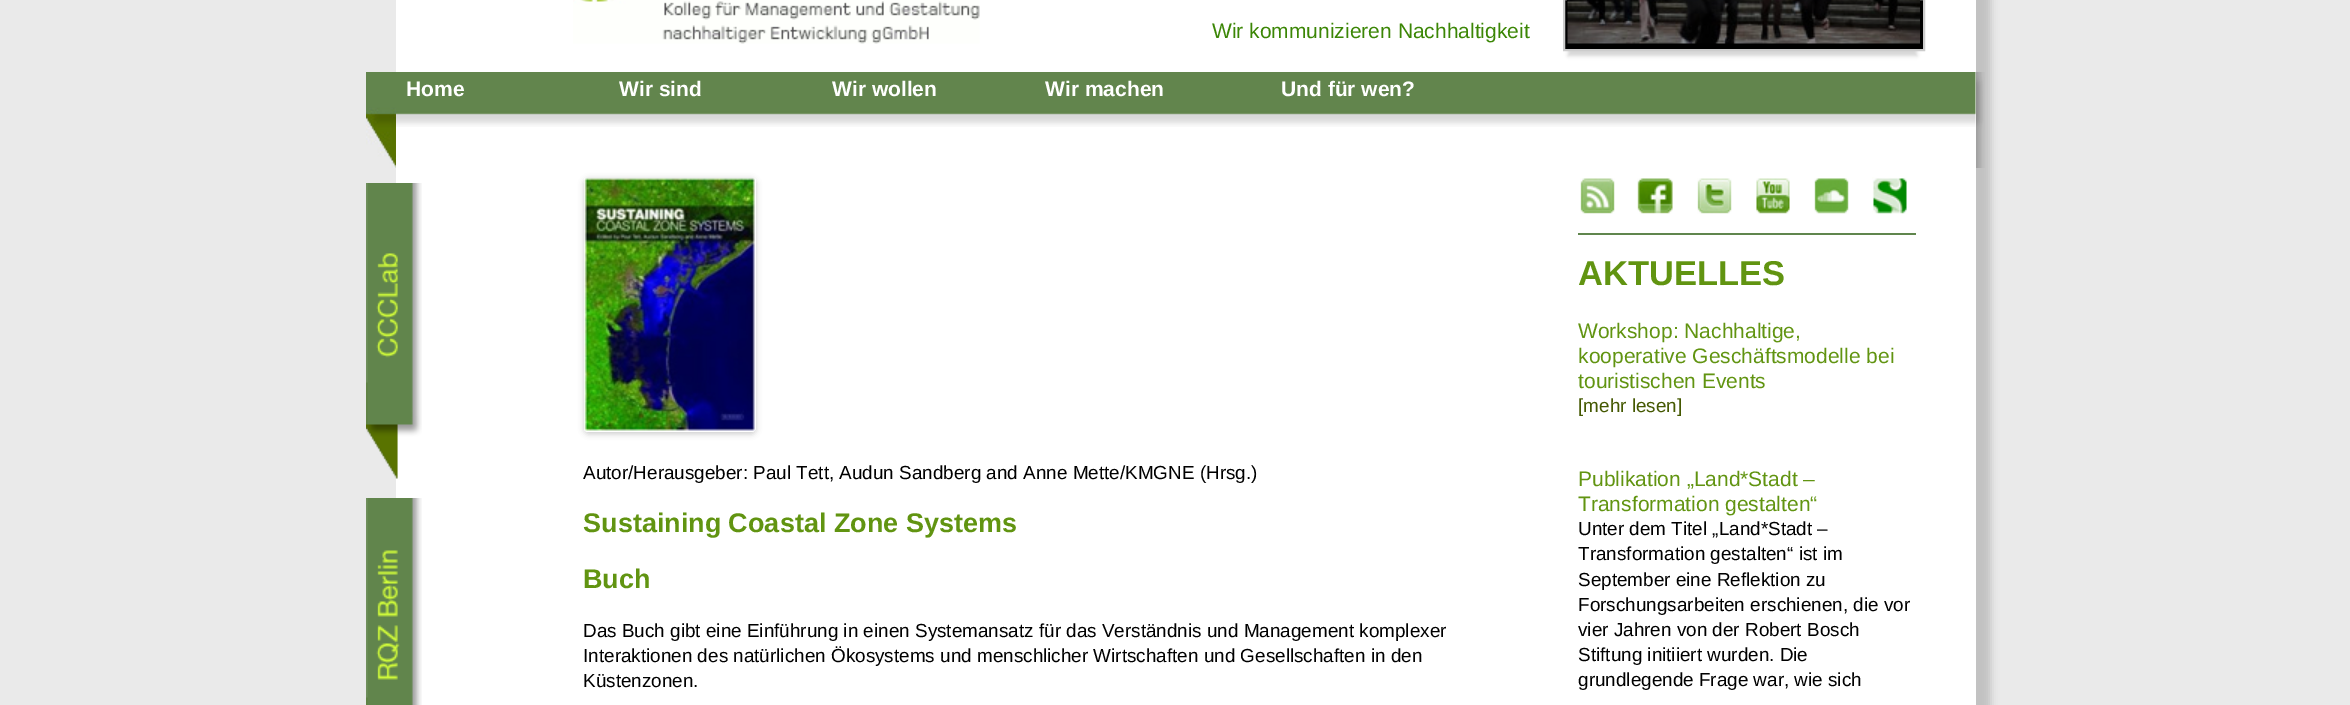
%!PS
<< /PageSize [2350 705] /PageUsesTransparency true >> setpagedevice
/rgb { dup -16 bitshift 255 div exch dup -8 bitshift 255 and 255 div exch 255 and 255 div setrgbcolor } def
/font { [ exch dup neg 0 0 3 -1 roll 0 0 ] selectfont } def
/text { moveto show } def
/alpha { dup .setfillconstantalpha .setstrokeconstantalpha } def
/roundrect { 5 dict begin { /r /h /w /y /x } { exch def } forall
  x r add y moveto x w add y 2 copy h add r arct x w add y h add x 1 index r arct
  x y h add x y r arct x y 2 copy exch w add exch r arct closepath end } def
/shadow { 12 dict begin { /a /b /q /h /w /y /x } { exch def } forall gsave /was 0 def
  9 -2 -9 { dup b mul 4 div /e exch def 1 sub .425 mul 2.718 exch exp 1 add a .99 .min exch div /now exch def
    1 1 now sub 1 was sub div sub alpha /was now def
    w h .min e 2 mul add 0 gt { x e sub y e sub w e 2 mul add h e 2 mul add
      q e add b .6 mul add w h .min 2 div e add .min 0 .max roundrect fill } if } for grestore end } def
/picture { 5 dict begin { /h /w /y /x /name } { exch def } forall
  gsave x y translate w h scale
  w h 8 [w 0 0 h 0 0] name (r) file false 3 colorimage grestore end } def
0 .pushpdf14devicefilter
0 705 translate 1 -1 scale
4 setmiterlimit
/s1 { /LiberationSans-Regular 21 font 16#3B8605 rgb } def
/s2 { /LiberationSans-Bold 21 font 16#FFFFFF rgb } def
/s3 { /LiberationSans-Regular 18.9 font 16#000000 rgb } def
/s4 { /LiberationSans-Bold 27 font 16#619411 rgb } def
/s5 { /LiberationSans-Bold 34.5 font 16#619411 rgb } def
/s6 { /LiberationSans-Regular 21 font 16#619411 rgb } def
/s7 { /LiberationSans-Regular 18.9 font 16#445801 rgb } def
16#EAEAEA rgb
0 0 2350 705 rectfill
(pic1.raw) 366 72 1619 96 picture
16#646464 rgb
411 -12 1580 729 0 4 0.3 shadow
16#FFFFFF rgb
396 0 1580 705 rectfill
(pic2.raw) 366 183 56 296 picture
(pic3.raw) 573 0 407 44 picture
s1
(Wir kommunizieren Nachhaltigkeit) 1212 38 text
16#D5D5D5 rgb
1568 -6 349 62 0 2 1 shadow
16#000000 rgb
1564 -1 moveto 1924 -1 lineto 1924 50 lineto 1564 50 lineto closepath gsave fill grestore
16#CCCCCC rgb
2 setlinewidth
stroke
(pic4.raw) 1567 0 353 44 picture
(pic5.raw) 396 72 1580 55 picture
s2
(Home) 406 96 text
(Wir sind) 619 96 text
(Wir wollen) 832 96 text
(Wir machen) 1045 96 text
(Und für wen?) 1281 96 text
16#000000 rgb
584 179 172 255 5 3 0.2 shadow
(pic6.raw) 584 178 172 254 picture
s3
(Autor/Herausgeber: Paul Tett, Audun Sandberg and Anne Mette/KMGNE \(Hrsg.\)) 583 479 text
s4
(Sustaining Coastal Zone Systems) 583 532 text
(Buch) 583 588 text
s3
(Das Buch gibt eine Einführung in einen Systemansatz für das Verständnis und Management komplexer) 583 637 text
(Interaktionen des natürlichen Ökosystems und menschlicher Wirtschaften und Gesellschaften in den) 583 662 text
(Küstenzonen.) 583 687 text
(pic7.raw) 1580 178 35 36 picture
(pic8.raw) 1637 178 36 36 picture
(pic9.raw) 1697 178 35 36 picture
(pic10.raw) 1756 178 34 36 picture
(pic11.raw) 1814 178 35 36 picture
(pic12.raw) 1872 177 35 37 picture
16#60864D rgb
1578 233 338 2 rectfill
s5
(AKTUELLES) 1578 285 text
s6
(Workshop: Nachhaltige,) 1578 338 text
(kooperative Geschäftsmodelle bei) 1578 363 text
(touristischen Events) 1578 388 text
s7
([mehr lesen]) 1578 412 text
s6
(Publikation „Land*Stadt –) 1578 486 text
(Transformation gestalten“) 1578 511 text
s3
(Unter dem Titel „Land*Stadt –) 1578 535 text
(Transformation gestalten“ ist im) 1578 560 text
(September eine Reflektion zu) 1578 586 text
(Forschungsarbeiten erschienen, die vor) 1578 611 text
(vier Jahren von der Robert Bosch) 1578 636 text
(Stiftung initiiert wurden. Die) 1578 661 text
(grundlegende Frage war, wie sich) 1578 686 text
(pic13.raw) 366 498 56 207 picture
.poppdf14devicefilter showpage
